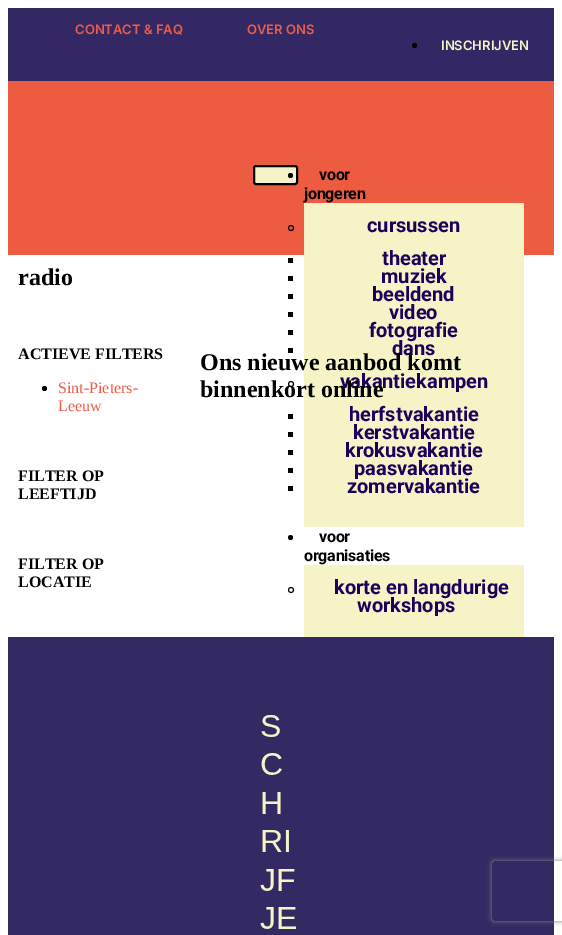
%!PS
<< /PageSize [562 935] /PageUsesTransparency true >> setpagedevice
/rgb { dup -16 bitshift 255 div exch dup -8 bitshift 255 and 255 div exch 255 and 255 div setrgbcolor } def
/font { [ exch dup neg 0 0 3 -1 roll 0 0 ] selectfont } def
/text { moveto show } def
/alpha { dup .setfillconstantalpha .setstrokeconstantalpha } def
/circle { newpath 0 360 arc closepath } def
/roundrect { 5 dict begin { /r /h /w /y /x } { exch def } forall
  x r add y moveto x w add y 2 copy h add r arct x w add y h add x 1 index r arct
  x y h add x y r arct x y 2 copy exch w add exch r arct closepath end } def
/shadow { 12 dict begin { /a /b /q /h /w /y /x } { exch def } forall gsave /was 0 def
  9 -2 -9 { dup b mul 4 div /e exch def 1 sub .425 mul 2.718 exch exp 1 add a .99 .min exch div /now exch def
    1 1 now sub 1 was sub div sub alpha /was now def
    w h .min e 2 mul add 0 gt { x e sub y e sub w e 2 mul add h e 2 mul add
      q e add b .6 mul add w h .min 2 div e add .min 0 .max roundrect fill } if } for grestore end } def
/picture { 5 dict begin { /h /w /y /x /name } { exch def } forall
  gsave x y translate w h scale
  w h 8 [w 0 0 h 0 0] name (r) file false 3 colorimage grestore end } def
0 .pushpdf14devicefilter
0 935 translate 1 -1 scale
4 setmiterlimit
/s1 { /Inter-SemiBold 13 font 16#EB5D49 rgb } def
/s2 { /Inter-SemiBold 13 font 16#F6F5C4 rgb } def
/s3 { /Roboto-Bold 20 font 16#1D005B rgb } def
/s4 { /LiberationSerif-Bold 24 font 16#000000 rgb } def
/s5 { /LiberationSerif-Bold 16 font 16#000000 rgb } def
/s6 { /LiberationSerif-Regular 16 font 16#EB5D49 rgb } def
16#FFFFFF rgb
0 0 562 935 rectfill
16#332863 rgb
8 8 546 73 rectfill
s1
(CONTACT & FAQ) 75 34 text
(OVER ONS) 247 34 text
16#000000 rgb
414.5 45.5 2.5 circle fill
s2
(INSCHRIJVEN) 441 50 text
16#ED5C41 rgb
8 81 546 174 rectfill
16#F6F4C7 rgb
254 166 43 18 2 roundrect gsave fill grestore
16#000000 rgb
2 setlinewidth
stroke
290.5 175.5 2.5 circle fill
/Roboto-Bold 16 font
319 180 moveto -0.25 0 (voor) ashow
304 199 moveto -0.25 0 (jongeren) ashow
16#F6F4C7 rgb
304 203 220 324 rectfill
16#000000 rgb
1 setlinewidth
291 228 2.5 circle stroke
s3
(cursussen) 367 232 text
16#000000 rgb
288 258 5 5 rectfill
s3
(theater) 382 265 text
16#000000 rgb
288 276 5 5 rectfill
s3
(muziek) 381 283 text
16#000000 rgb
288 294 5 5 rectfill
s3
(beeldend) 372 301 text
16#000000 rgb
288 312 5 5 rectfill
s3
(video) 389 319 text
16#000000 rgb
288 330 5 5 rectfill
s3
(fotografie) 369 337 text
16#000000 rgb
288 348 5 5 rectfill
s3
(dans) 392 355 text
16#000000 rgb
291 384 2.5 circle stroke
s3
(vakantiekampen) 340 388 text
16#000000 rgb
288 414 5 5 rectfill
s3
(herfstvakantie) 349 421 text
16#000000 rgb
288 432 5 5 rectfill
s3
(kerstvakantie) 353 439 text
16#000000 rgb
288 450 5 5 rectfill
s3
(krokusvakantie) 345 457 text
16#000000 rgb
288 468 5 5 rectfill
s3
(paasvakantie) 354 475 text
16#000000 rgb
288 486 5 5 rectfill
s3
(zomervakantie) 347 493 text
16#000000 rgb
290.5 537.5 2.5 circle fill
/Roboto-Bold 16 font
319 542 moveto -0.25 0 (voor) ashow
304 561 moveto -0.25 0 (organisaties) ashow
16#F6F4C7 rgb
304 565 220 72 rectfill
16#000000 rgb
291 590 2.5 circle stroke
s3
(korte en langdurige) 334 594 text
(workshops) 357 612 text
s4
(radio) 18 285 text
s5
(ACTIEVE FILTERS) 18 359 text
44.5 388.5 2.5 circle fill
s6
(Sint-Pieters-) 58 393 text
(Leeuw) 58 411 text
s5
(FILTER OP) 18 481 text
(LEEFTIJD) 18 499 text
(FILTER OP) 18 569 text
(LOCATIE) 18 587 text
s4
(Ons nieuwe aanbod komt) 200 370 text
(binnenkort online) 200 397 text
16#332A63 rgb
8 637 546 298 rectfill
(pic1.raw) 260 715 36 214 picture
gsave
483 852 moveto 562 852 lineto 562 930 lineto 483 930 lineto closepath 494 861 moveto 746 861 lineto 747 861 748 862 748 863 curveto 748 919 lineto 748 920 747 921 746 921 curveto 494 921 lineto 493 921 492 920 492 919 curveto 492 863 lineto 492 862 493 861 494 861 curveto closepath eoclip newpath
16#808080 rgb
492 861 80 60 2 2.5 1 shadow
grestore
.poppdf14devicefilter showpage
